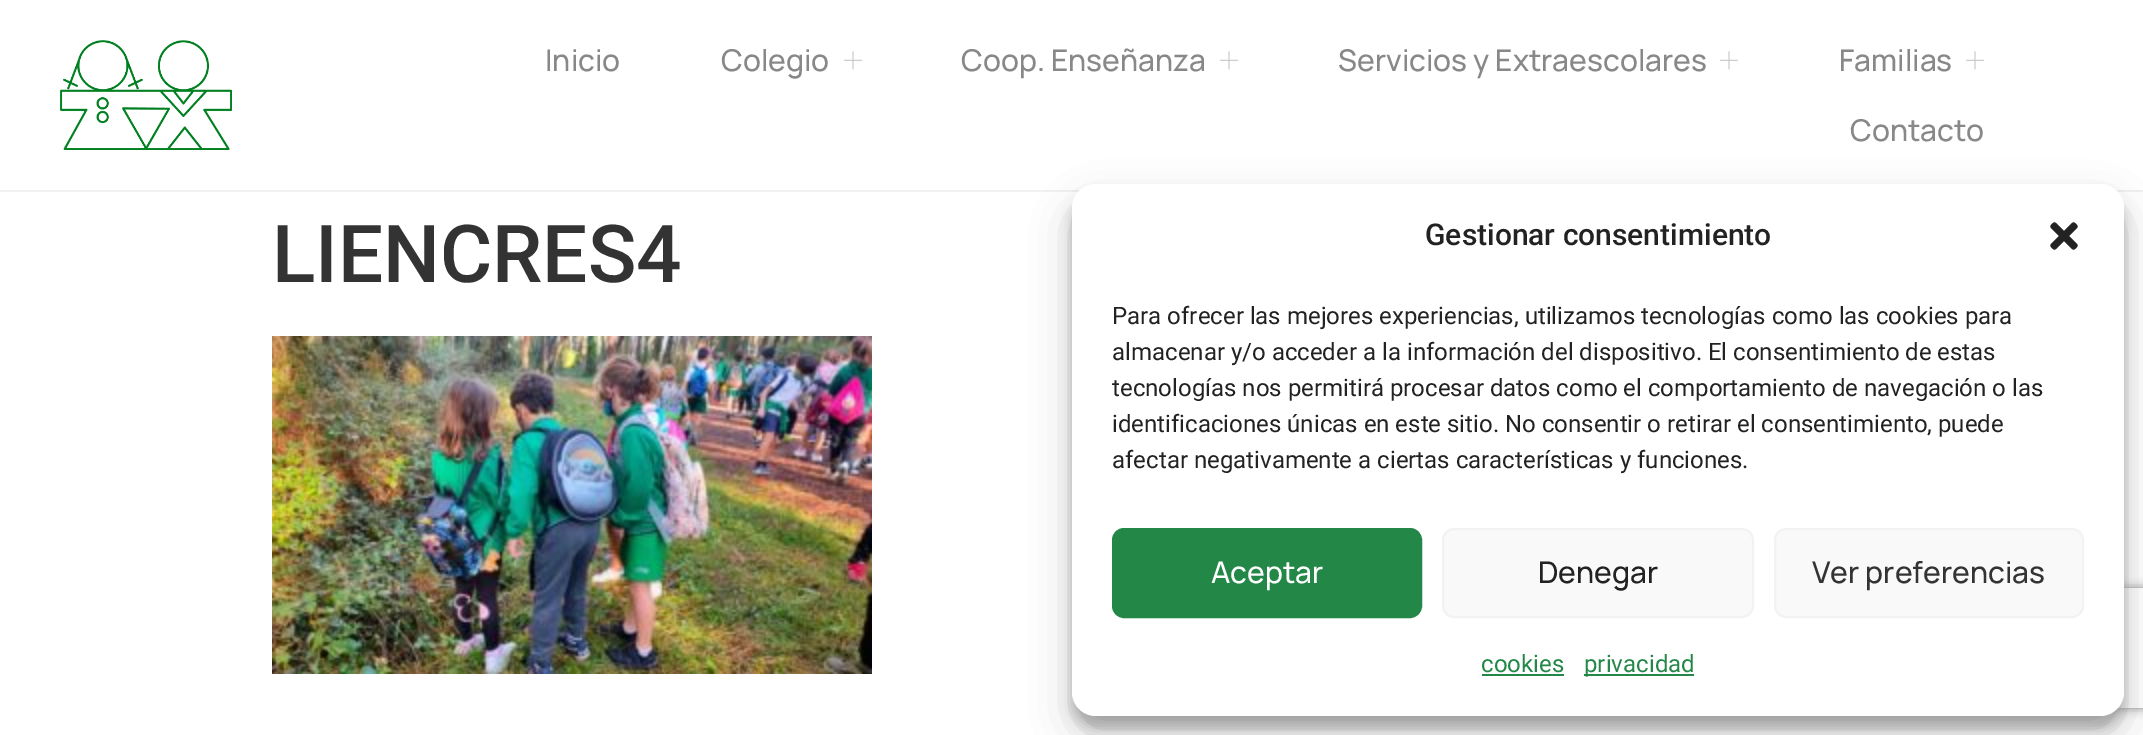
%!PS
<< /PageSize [2143 735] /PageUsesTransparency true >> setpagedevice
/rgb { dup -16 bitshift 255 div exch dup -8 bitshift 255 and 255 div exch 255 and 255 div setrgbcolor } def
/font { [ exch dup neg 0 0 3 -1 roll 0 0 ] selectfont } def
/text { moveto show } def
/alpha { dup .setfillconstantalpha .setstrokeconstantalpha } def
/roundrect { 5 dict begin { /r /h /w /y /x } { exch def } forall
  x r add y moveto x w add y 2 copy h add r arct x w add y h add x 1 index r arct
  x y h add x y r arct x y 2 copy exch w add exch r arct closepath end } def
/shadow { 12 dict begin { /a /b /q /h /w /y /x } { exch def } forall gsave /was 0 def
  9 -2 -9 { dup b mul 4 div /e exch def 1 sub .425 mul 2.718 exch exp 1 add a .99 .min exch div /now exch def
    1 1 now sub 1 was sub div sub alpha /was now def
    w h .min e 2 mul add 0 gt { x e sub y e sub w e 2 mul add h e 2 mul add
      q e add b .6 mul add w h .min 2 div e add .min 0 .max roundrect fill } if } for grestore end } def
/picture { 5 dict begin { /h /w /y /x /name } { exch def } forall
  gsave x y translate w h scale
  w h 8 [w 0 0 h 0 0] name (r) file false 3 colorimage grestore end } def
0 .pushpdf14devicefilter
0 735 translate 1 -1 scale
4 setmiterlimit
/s1 { /Manrope-Medium 30 font 16#888888 rgb } def
/s2 { /Roboto-Medium 80 font 16#333333 rgb } def
/s3 { /Roboto-Medium 30 font 16#222222 rgb } def
/s4 { /Roboto-Regular 24 font 16#222222 rgb } def
/s5 { /Manrope-Medium 30 font 16#FFFFFF rgb } def
/s6 { /Manrope-Medium 30 font 16#222222 rgb } def
/s7 { /Manrope-Medium 30 font 16#333333 rgb } def
/s8 { /Roboto-Regular 24 font 16#238747 rgb } def
16#FFFFFF rgb
0 0 2143 735 rectfill
16#F1F1F1 rgb
0 190 2143 2 rectfill
(pic1.raw) 60 40 172 110 picture
s1
(Inicio) 545 71 text
(Colegio) 721 71 text
(pic2.raw) 844 51 18 19 picture
(Coop. Enseñanza) 961 71 text
(pic2.raw) 1220 51 18 19 picture
(Servicios y Extraescolares) 1338 71 text
(pic2.raw) 1720 51 18 19 picture
(Familias) 1839 71 text
(pic2.raw) 1966 51 18 19 picture
(Contacto) 1850 141 text
s2
(LIENCRES4) 272 282 text
(pic3.raw) 272 336 600 338 picture
16#000000 rgb
1072 196 1052 532 24 6 0.23 shadow
1072 204 1052 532 24 20 0.19 shadow
gsave
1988 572 moveto 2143 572 lineto 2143 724 lineto 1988 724 lineto closepath 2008 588 moveto 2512 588 lineto 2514 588 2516 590 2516 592 curveto 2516 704 lineto 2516 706 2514 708 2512 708 curveto 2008 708 lineto 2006 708 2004 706 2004 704 curveto 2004 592 lineto 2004 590 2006 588 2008 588 curveto closepath eoclip newpath
16#808080 rgb
2004 588 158 120 4 5 1 shadow
grestore
16#FFFFFF rgb
1072 184 1052 532 24 roundrect fill
s3
(Gestionar consentimiento) 1425 245 text
(pic4.raw) 2050 222 28 28 picture
s4
(Para ofrecer las mejores experiencias, utilizamos tecnologías como las cookies para) 1112 324 text
(almacenar y/o acceder a la información del dispositivo. El consentimiento de estas) 1112 360 text
(tecnologías nos permitirá procesar datos como el comportamiento de navegación o las) 1112 396 text
(identificaciones únicas en este sitio. No consentir o retirar el consentimiento, puede) 1112 432 text
(afectar negativamente a ciertas características y funciones.) 1112 468 text
16#238747 rgb
1113 529 308 88 11 roundrect gsave fill grestore
2 setlinewidth
stroke
s5
(Aceptar) 1211 583 text
16#F9F9F9 rgb
1443 529 310 88 11 roundrect gsave fill grestore
16#F2F2F2 rgb
stroke
s6
(Denegar) 1538 583 text
16#F9F9F9 rgb
1775 529 308 88 11 roundrect gsave fill grestore
16#F2F2F2 rgb
stroke
s7
(Ver preferencias) 1812 583 text
s8
(cookies) 1481 672 text
1482 674 82 2 rectfill
1584 674 110 2 rectfill
(privacidad) 1584 672 text
.poppdf14devicefilter showpage
